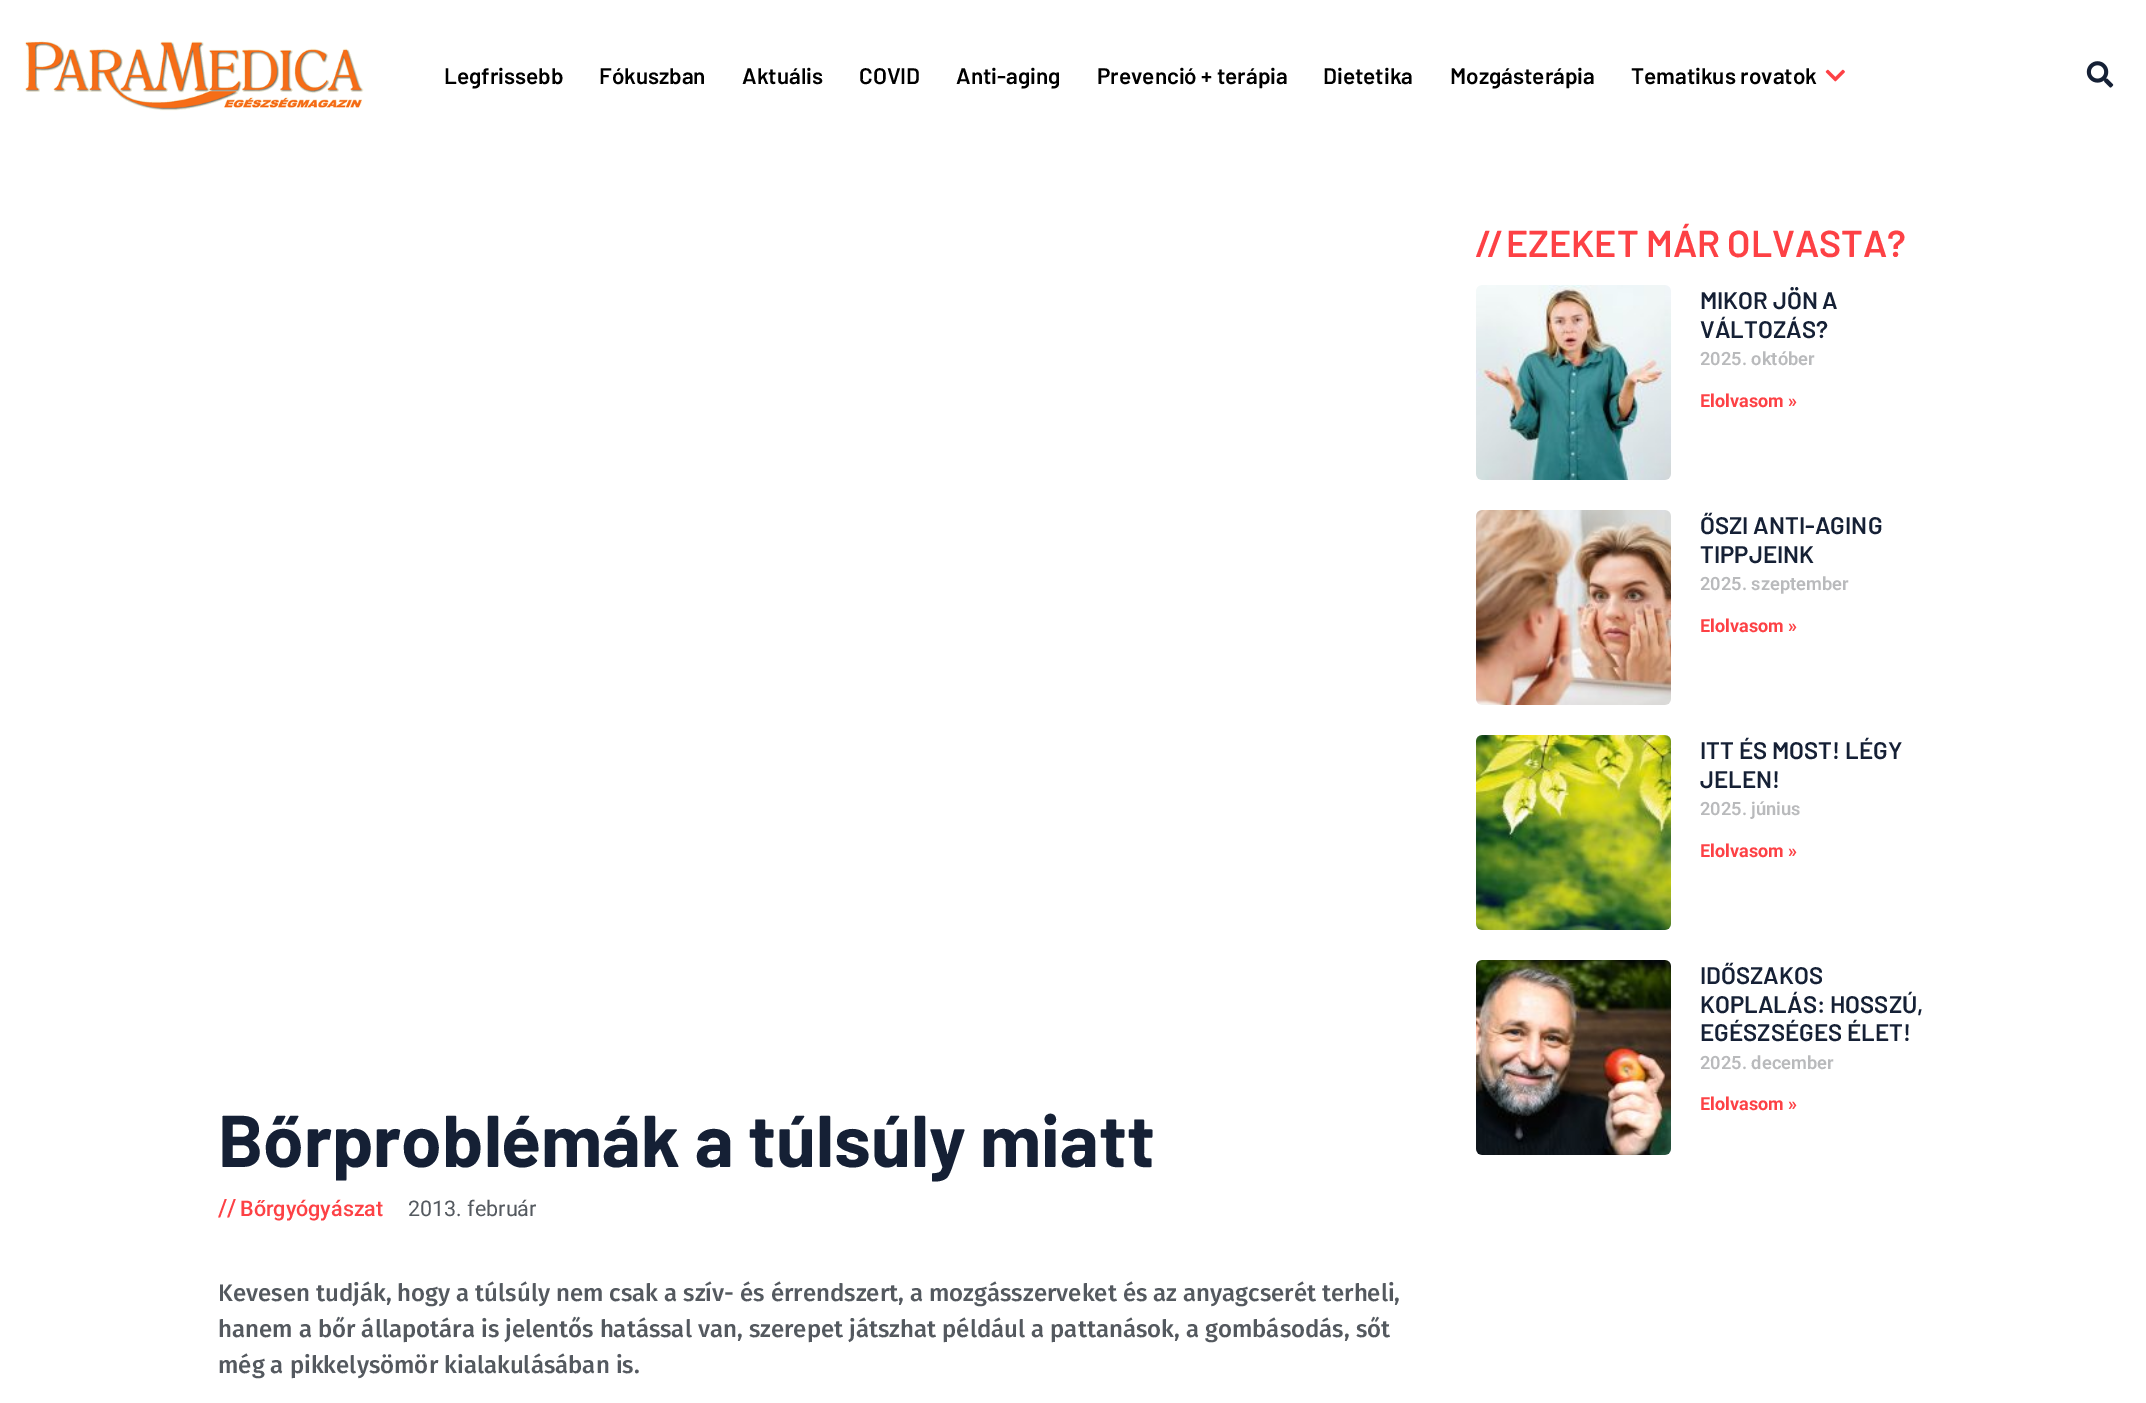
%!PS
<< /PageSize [2146 1403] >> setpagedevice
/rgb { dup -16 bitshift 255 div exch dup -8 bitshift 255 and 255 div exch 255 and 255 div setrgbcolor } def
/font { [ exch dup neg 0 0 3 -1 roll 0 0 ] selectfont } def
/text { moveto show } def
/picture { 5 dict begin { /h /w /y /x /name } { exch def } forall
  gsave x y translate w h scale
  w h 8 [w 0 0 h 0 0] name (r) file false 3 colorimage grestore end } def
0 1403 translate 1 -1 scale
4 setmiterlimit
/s1 { /Barlow-SemiBold 22.5 font 16#000000 rgb } def
/s2 { /Barlow-SemiBold 37.5 font 16#FD4145 rgb } def
/s3 { /Barlow-SemiBold 24 font 16#152035 rgb } def
/s4 { /Roboto-SemiBold 18.25 font 16#B9BABC rgb } def
/s5 { /Roboto-Bold 18 font 16#FD4145 rgb } def
/s6 { /Barlow-Bold 73.25 font 16#152035 rgb } def
/s7 { /Roboto-Medium 24 font 16#FD4145 rgb } def
/s8 { /Roboto-Medium 21.5 font 16#FD4145 rgb } def
/s9 { /Roboto-Regular 21.5 font 16#54595F rgb } def
/s10 { /FiraSans-Medium 24 font 16#54595F rgb } def
16#FFFFFF rgb
0 0 2146 1403 rectfill
(pic1.raw) 24 40 340 71 picture
s1
(Legfrissebb) 444 84 text
(Fókuszban) 599 84 text
(Aktuális) 742 84 text
(COVID) 859 84 text
(Anti-aging) 956 84 text
(Prevenció + terápia) 1097 84 text
(Dietetika) 1323 84 text
(Mozgásterápia) 1450 84 text
(Tematikus rovatok) 1631 84 text
(pic2.raw) 1825 69 20 13 picture
(pic3.raw) 2086 61 28 27 picture
/Barlow-SemiBold 37.5 font
16#FD4145 rgb
1475 257 moveto -5 0 (//) ashow
(EZEKET MÁR OLVASTA?) 1506 257 text
(pic4.raw) 1476 285 195 195 picture
s3
(MIKOR JÖN A) 1700 309 text
(VÁLTOZÁS?) 1700 338 text
s4
(2025. október) 1700 365 text
s5
(Elolvasom ») 1700 407 text
(pic5.raw) 1476 510 195 195 picture
s3
(ŐSZI ANTI-AGING) 1700 534 text
(TIPPJEINK) 1700 563 text
s4
(2025. szeptember) 1700 590 text
s5
(Elolvasom ») 1700 632 text
(pic6.raw) 1476 735 195 195 picture
s3
(ITT ÉS MOST! LÉGY) 1700 759 text
(JELEN!) 1700 788 text
s4
(2025. június) 1700 815 text
s5
(Elolvasom ») 1700 857 text
(pic7.raw) 1476 960 195 195 picture
s3
(IDŐSZAKOS) 1700 984 text
(KOPLALÁS: HOSSZÚ,) 1700 1013 text
(EGÉSZSÉGES ÉLET!) 1700 1041 text
s4
(2025. december) 1700 1069 text
s5
(Elolvasom ») 1700 1110 text
s6
(Bőrproblémák a túlsúly miatt) 218 1167 text
s7
(//) 218 1216 text
s8
(Bőrgyógyászat) 240 1216 text
s9
(2013. február) 408 1216 text
s10
(Kevesen tudják, hogy a túlsúly nem csak a szív- és érrendszert, a mozgásszerveket és az anyagcserét terheli,) 218 1301 text
(hanem a bőr állapotára is jelentős hatással van, szerepet játszhat például a pattanások, a gombásodás, sőt) 218 1337 text
(még a pikkelysömör kialakulásában is.) 218 1373 text
showpage
